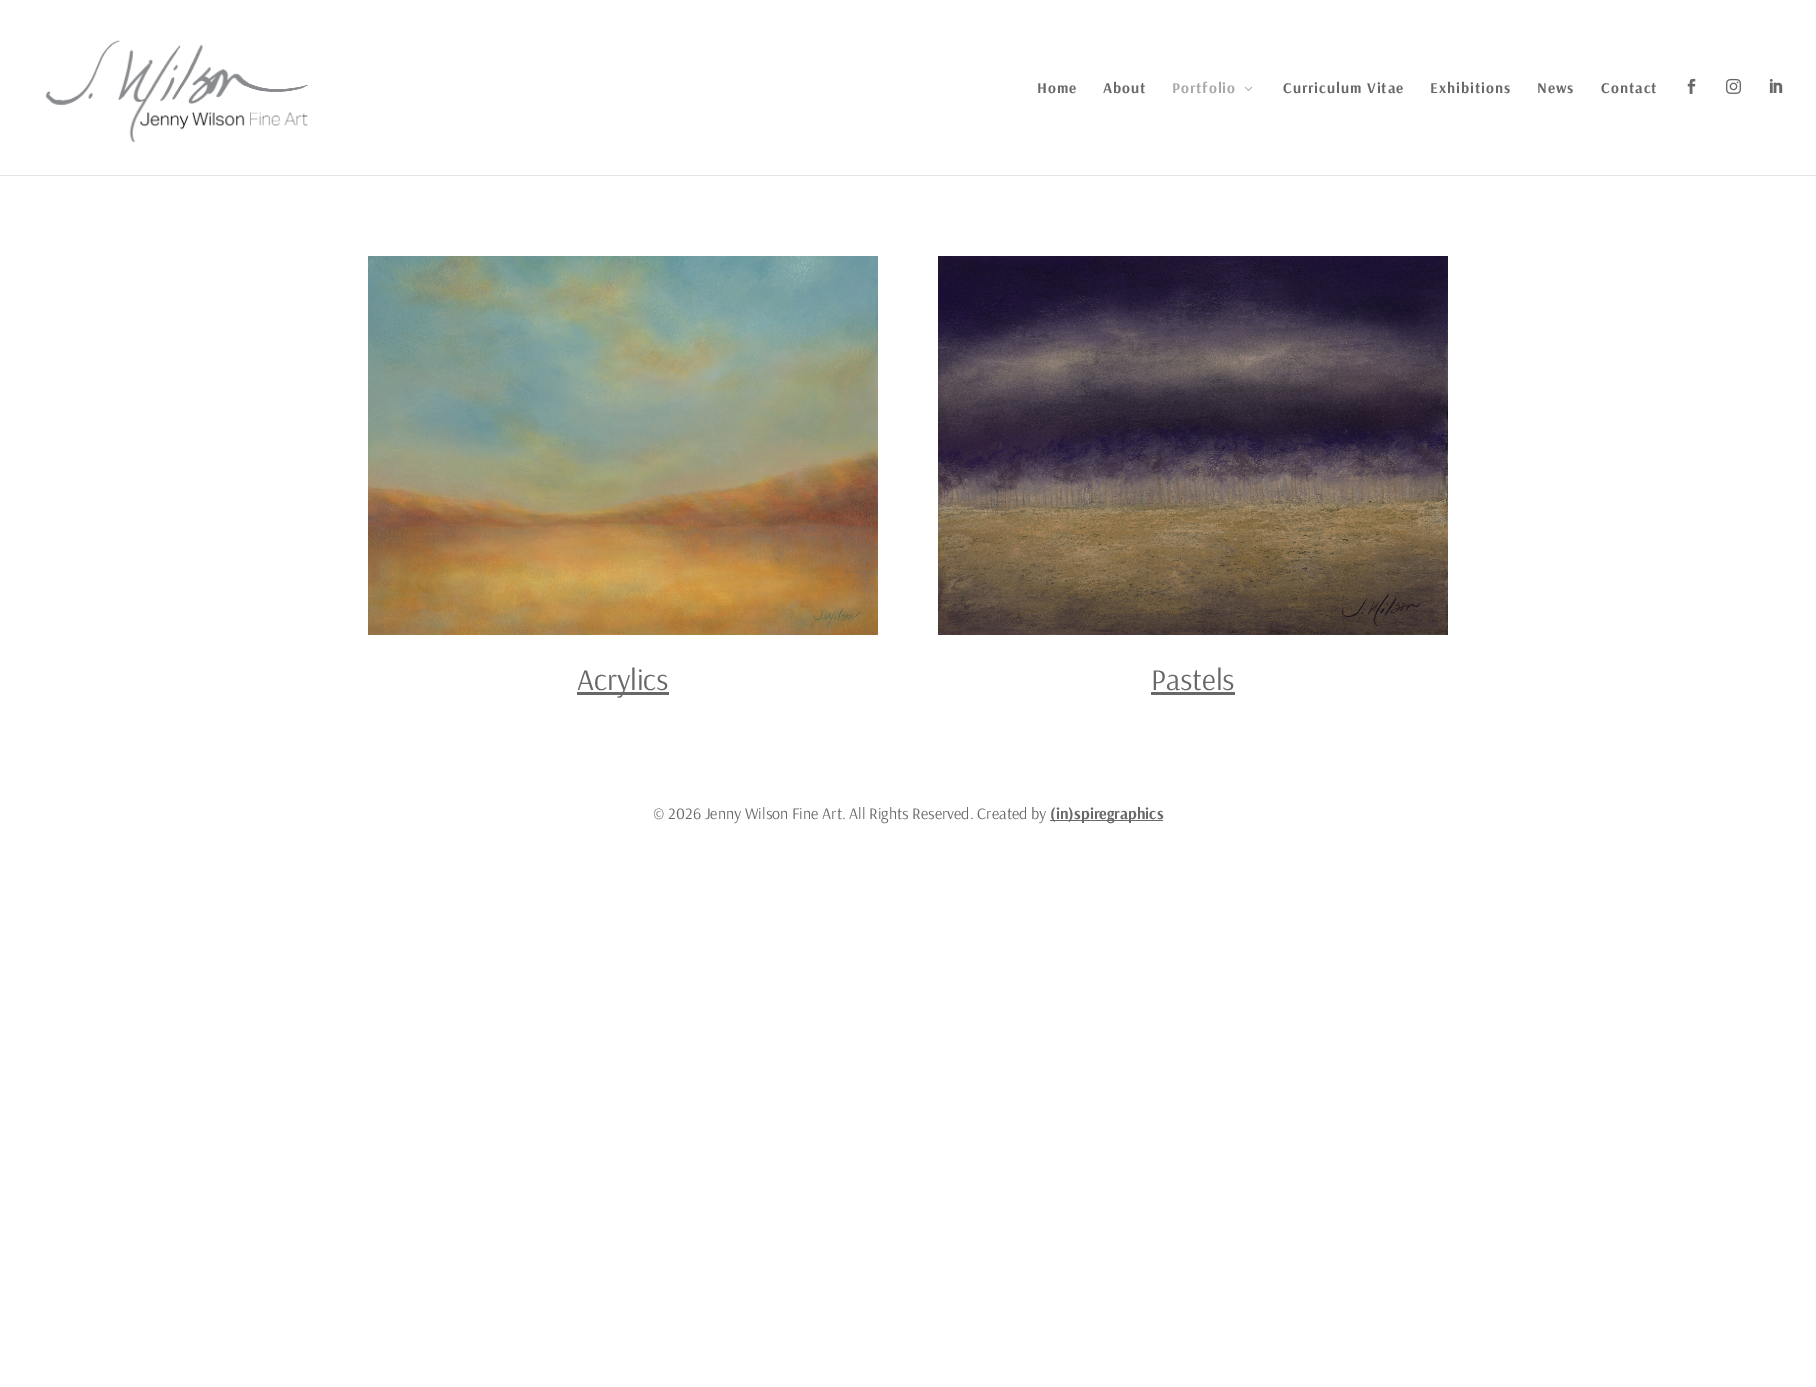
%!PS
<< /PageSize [1816 1387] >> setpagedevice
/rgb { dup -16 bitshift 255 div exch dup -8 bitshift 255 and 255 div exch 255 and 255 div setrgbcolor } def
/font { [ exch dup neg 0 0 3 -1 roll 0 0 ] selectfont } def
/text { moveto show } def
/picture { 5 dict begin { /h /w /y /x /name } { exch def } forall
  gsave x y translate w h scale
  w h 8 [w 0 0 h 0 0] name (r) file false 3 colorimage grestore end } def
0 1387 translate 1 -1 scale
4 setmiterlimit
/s1 { /Arsenal-Regular 30 font 16#686868 rgb } def
/s2 { /Arsenal-Regular 16 font 16#686868 rgb } def
/s3 { /Arsenal-Bold 16 font 16#686868 rgb } def
16#FFFFFF rgb
0 0 1816 1387 rectfill
16#E6E6E6 rgb
0 175 1816 1 rectfill
(pic1.raw) 45 40 264 103 picture
/Arsenal-Bold 15 font
16#686868 rgb
1037 93 moveto 1 0 (Home) ashow
1103 93 moveto 1 0 (About) ashow
16#A8A8A8 rgb
1172 93 moveto 1 0 (Portfolio) ashow
(pic2.raw) 1244 86 9 5 picture
16#686868 rgb
1283 93 moveto 1 0 (Curriculum Vitae) ashow
1430 93 moveto 1 0 (Exhibitions) ashow
1537 93 moveto 1 0 (News) ashow
1601 93 moveto 1 0 (Contact) ashow
(pic3.raw) 1687 78 9 16 picture
(pic4.raw) 1726 78 15 16 picture
(pic5.raw) 1769 79 14 14 picture
(pic6.raw) 368 256 510 379 picture
577 692 92 3 rectfill
s1
(Acrylics) 577 690 text
(pic7.raw) 938 256 510 379 picture
(Pastels) 1151 690 text
1151 692 84 3 rectfill
s2
(© 2026 Jenny Wilson Fine Art. All Rights Reserved. Created by) 653 819 text
1050 820 113 1 rectfill
s3
(\(in\)spiregraphics) 1050 819 text
showpage
